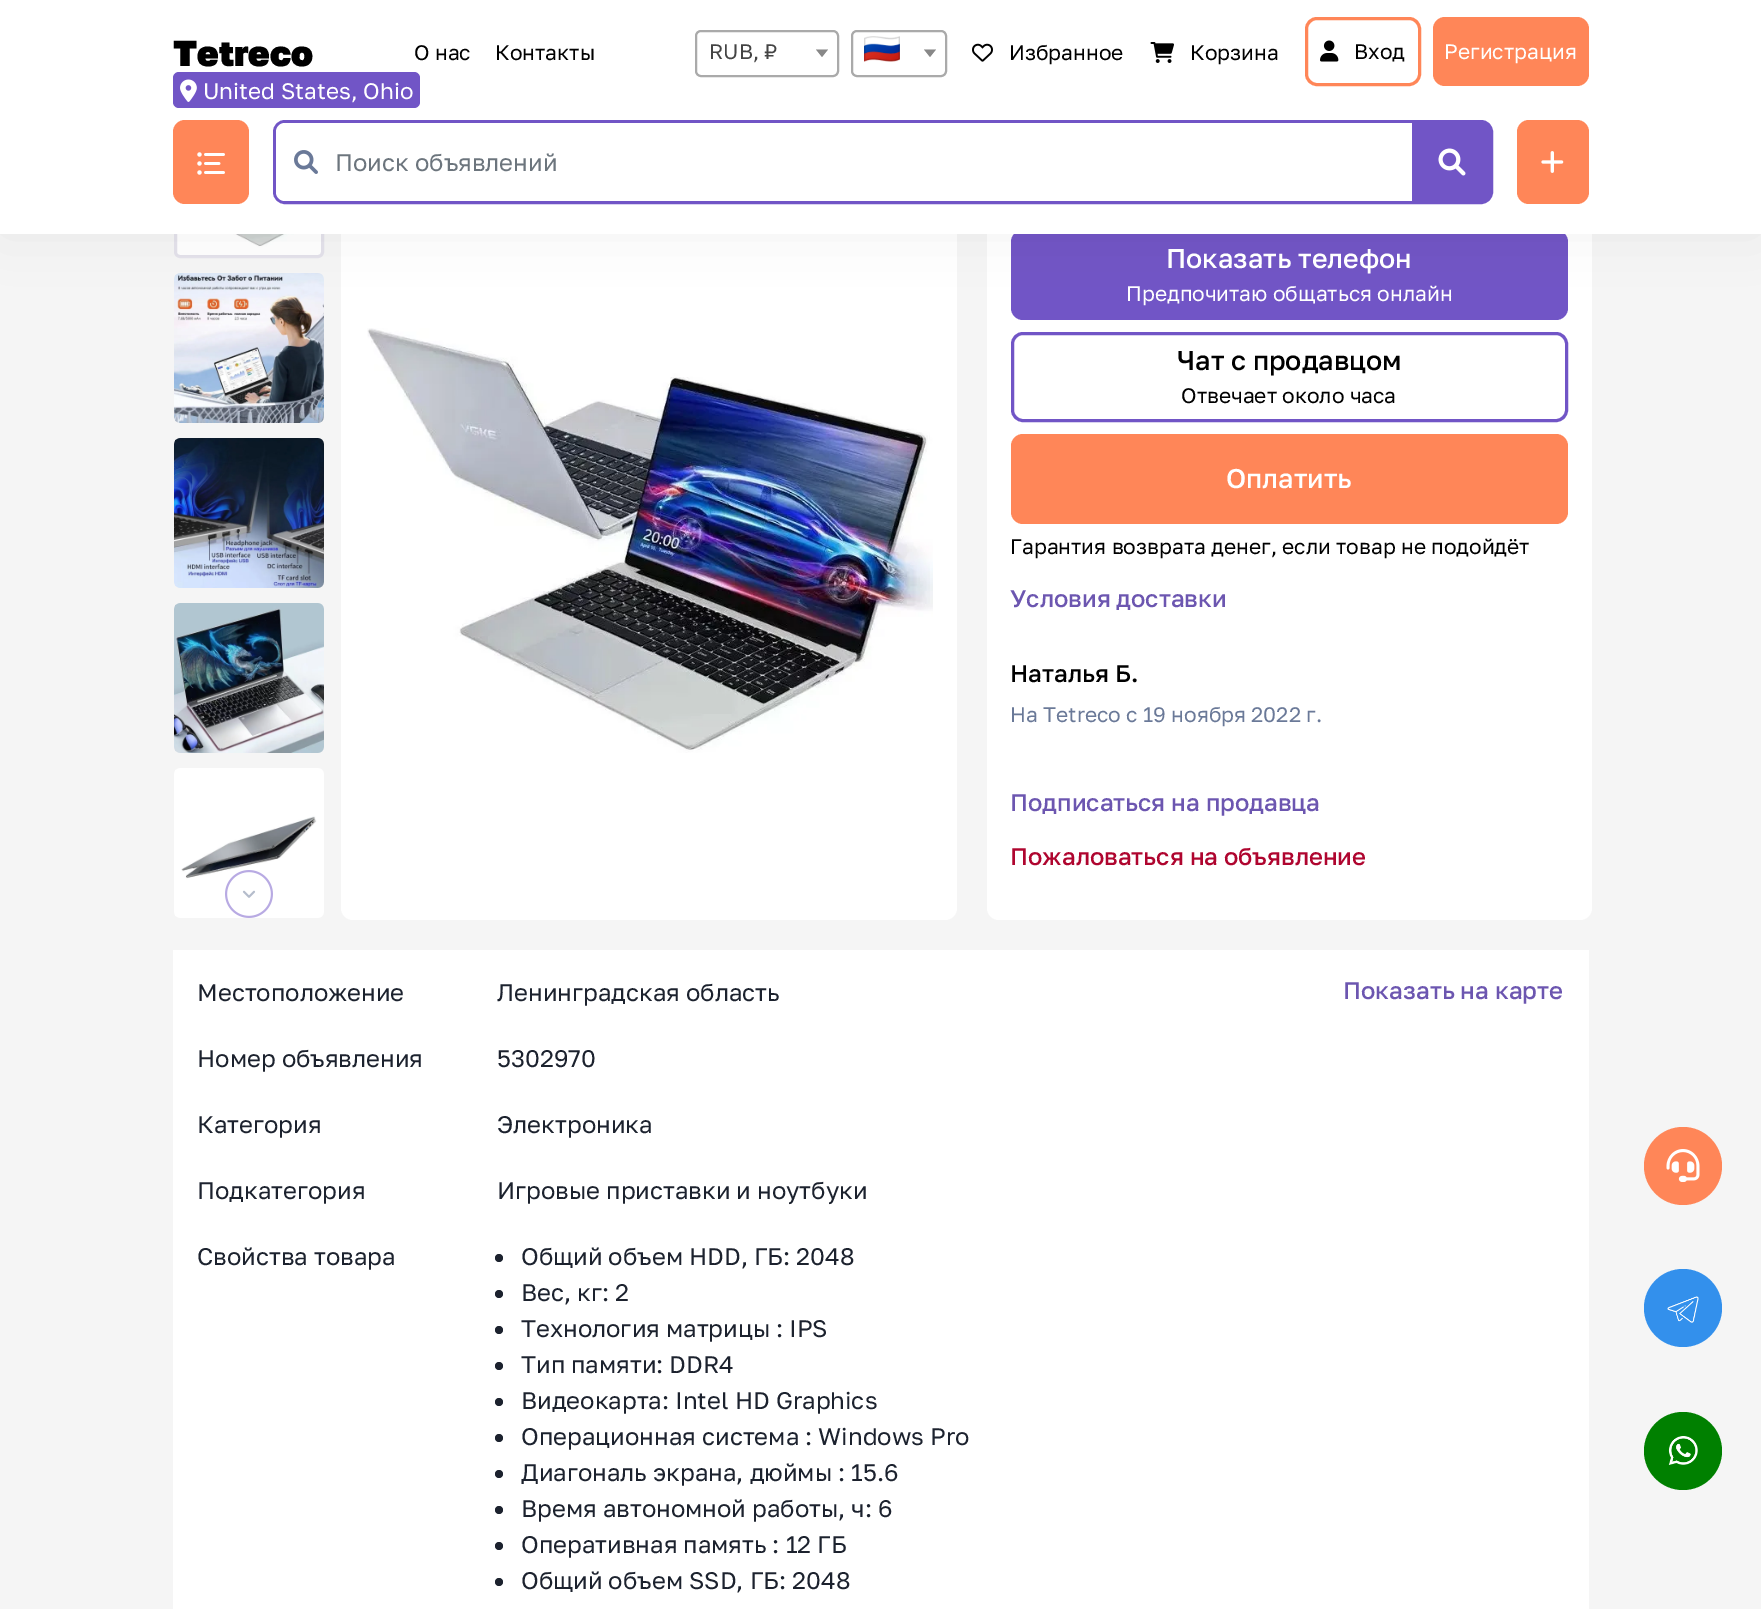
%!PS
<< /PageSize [1761 1609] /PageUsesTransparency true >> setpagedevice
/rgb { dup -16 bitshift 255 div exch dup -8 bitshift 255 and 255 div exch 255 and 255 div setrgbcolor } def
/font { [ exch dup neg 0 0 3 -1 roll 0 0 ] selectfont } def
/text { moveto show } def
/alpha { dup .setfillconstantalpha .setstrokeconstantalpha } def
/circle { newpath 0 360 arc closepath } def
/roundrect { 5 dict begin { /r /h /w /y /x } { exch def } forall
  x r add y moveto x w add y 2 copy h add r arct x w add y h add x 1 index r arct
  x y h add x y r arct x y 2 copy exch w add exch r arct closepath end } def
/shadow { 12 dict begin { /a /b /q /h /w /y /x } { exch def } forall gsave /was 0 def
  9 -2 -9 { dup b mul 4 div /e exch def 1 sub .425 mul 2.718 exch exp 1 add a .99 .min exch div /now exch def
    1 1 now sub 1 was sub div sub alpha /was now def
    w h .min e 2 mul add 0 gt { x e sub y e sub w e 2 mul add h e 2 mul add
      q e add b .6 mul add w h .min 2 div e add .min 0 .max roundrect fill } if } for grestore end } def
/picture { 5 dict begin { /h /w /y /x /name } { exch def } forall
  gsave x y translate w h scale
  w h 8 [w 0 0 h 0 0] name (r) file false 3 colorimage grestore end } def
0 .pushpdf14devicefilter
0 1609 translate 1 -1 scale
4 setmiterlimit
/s1 { /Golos-Black 36 font 16#000000 rgb } def
/s2 { /Golos-Regular 22.5 font 16#FFFFFF rgb } def
/s3 { /Golos-Regular 21 font 16#000000 rgb } def
/s4 { /Golos-Regular 21 font 16#444444 rgb } def
/s5 { /Golos-Regular 21 font 16#FFFFFF rgb } def
/s6 { /Golos-Regular 24 font 16#6C757D rgb } def
/s7 { /Golos-Medium 27 font 16#FFFFFF rgb } def
/s8 { /Golos-Medium 27 font 16#000000 rgb } def
/s9 { /Golos-Medium 24 font 16#6C56B0 rgb } def
/s10 { /Golos-Medium 24 font 16#000000 rgb } def
/s11 { /Golos-Regular 21 font 16#6A7998 rgb } def
/s12 { /Golos-Medium 24 font 16#AF052F rgb } def
/s13 { /Golos-Regular 24 font 16#1C222E rgb } def
16#F5F5F5 rgb
0 0 1761 1609 rectfill
(pic10.raw) 174 234 150 24 picture
16#E4E2EB rgb
3 setlinewidth
175.5 109.5 147 147 4.5 roundrect stroke
(pic11.raw) 174 273 150 150 picture
16#FFFFFF rgb
341 104 616 816 12 roundrect fill
987 104 605 816 12 roundrect fill
16#7155C6 rgb
1011 230 557 90 12 roundrect fill
16#000000 rgb
0 0 1761 234 0 30 0.05 shadow
16#FFFFFF rgb
0 0 1761 234 rectfill
s1
(Tetreco) 173 66 text
16#7155C6 rgb
173 72 247 36 6 roundrect fill
(pic1.raw) 180 79 17 23 picture
s2
(United States, Ohio) 203 99 text
s3
(О нас) 414 60 text
(Контакты) 495 60 text
16#AAAAAA rgb
2 setlinewidth
696 31 142 45 5 roundrect stroke
s4
(RUB, ₽) 709 59 text
16#888888 rgb
816 49.5 moveto 828 49.5 lineto 822 57 lineto closepath fill
16#AAAAAA rgb
852 31 94 45 5 roundrect stroke
(pic2.raw) 864 36 36 26 picture
16#888888 rgb
924 49.5 moveto 936 49.5 lineto 930 57 lineto closepath fill
(pic3.raw) 972 43 21 19 picture
s3
(Избранное) 1009 60 text
(pic4.raw) 1150 42 24 21 picture
(Корзина) 1190 60 text
16#FF8658 rgb
3 setlinewidth
1306.5 18.5 113 66 10.5 roundrect stroke
(pic5.raw) 1320 40 19 22 picture
s3
(Вход) 1354 59 text
16#FF8658 rgb
1433 17 156 69 12 roundrect fill
s5
(Регистрация) 1444 59 text
16#FF8658 rgb
173 120 76 84 12 roundrect fill
(pic6.raw) 197 152 28 23 picture
16#7155C6 rgb
274.5 121.5 1217 81 10.5 roundrect gsave fill grestore
stroke
16#FFFFFF rgb
285 123 moveto 336 123 lineto 336 201 lineto 285 201 lineto 280 201 276 197 276 192 curveto 276 132 lineto 276 127 280 123 285 123 curveto closepath fill
(pic7.raw) 294 150 24 24 picture
336 123 1076 78 rectfill
s6
(Поиск объявлений) 335 171 text
(pic8.raw) 1438 148 28 28 picture
16#FF8658 rgb
1517 120 72 84 12 roundrect fill
(pic9.raw) 1541 151 23 22 picture
(pic12.raw) 174 438 150 150 picture
(pic13.raw) 174 603 150 150 picture
(pic14.raw) 174 768 150 150 picture
(pic15.raw) 225 870 48 48 picture
(pic16.raw) 367 328 566 425 picture
s7
(Показать телефон) 1166 268 text
s5
(Предпочитаю общаться онлайн) 1126 301 text
16#7155C6 rgb
1012.5 333.5 554 87 10.5 roundrect stroke
s8
(Чат с продавцом) 1177 370 text
s3
(Отвечает около часа) 1181 403 text
16#FF8658 rgb
1011 434 557 90 12 roundrect fill
s7
(Оплатить) 1226 488 text
s3
(Гарантия возврата денег, если товар не подойдёт) 1010 554 text
s9
(Условия доставки) 1010 607 text
s10
(Наталья Б.) 1010 682 text
s11
(На Tetreco с 19 ноября 2022 г.) 1010 722 text
s9
(Подписаться на продавца) 1010 811 text
s12
(Пожаловаться на объявление) 1010 865 text
16#FFFFFF rgb
173 950 1416 659 rectfill
s13
(Местоположение) 197 1001 text
(Ленинградская область) 497 1001 text
s9
(Показать на карте) 1343 999 text
s13
(Номер объявления) 197 1067 text
(5302970) 497 1067 text
(Категория) 197 1133 text
(Электроника) 497 1133 text
(Подкатегория) 197 1199 text
(Игровые приставки и ноутбуки) 497 1199 text
(Свойства товара) 197 1265 text
499 1258 4 circle fill
(Общий объем HDD, ГБ: 2048) 521 1265 text
499 1294 4 circle fill
(Вес, кг: 2) 521 1301 text
499 1330 4 circle fill
(Технология матрицы : IPS) 521 1337 text
499 1366 4 circle fill
(Тип памяти: DDR4) 521 1373 text
499 1402 4 circle fill
(Видеокарта: Intel HD Graphics) 521 1409 text
499 1438 4 circle fill
(Операционная система : Windows Pro) 521 1445 text
499 1474 4 circle fill
(Диагональ экрана, дюймы : 15.6) 521 1481 text
499 1510 4 circle fill
(Время автономной работы, ч: 6) 521 1517 text
499 1546 4 circle fill
(Оперативная память : 12 ГБ) 521 1553 text
499 1582 4 circle fill
(Общий объем SSD, ГБ: 2048) 521 1589 text
16#FF8658 rgb
1683 1166 39 circle fill
(pic17.raw) 1666 1149 34 33 picture
16#3390EC rgb
1683 1308 39 circle fill
(pic18.raw) 1667 1296 32 27 picture
16#008000 rgb
1683 1451 39 circle fill
(pic19.raw) 1668 1436 30 29 picture
.poppdf14devicefilter showpage
